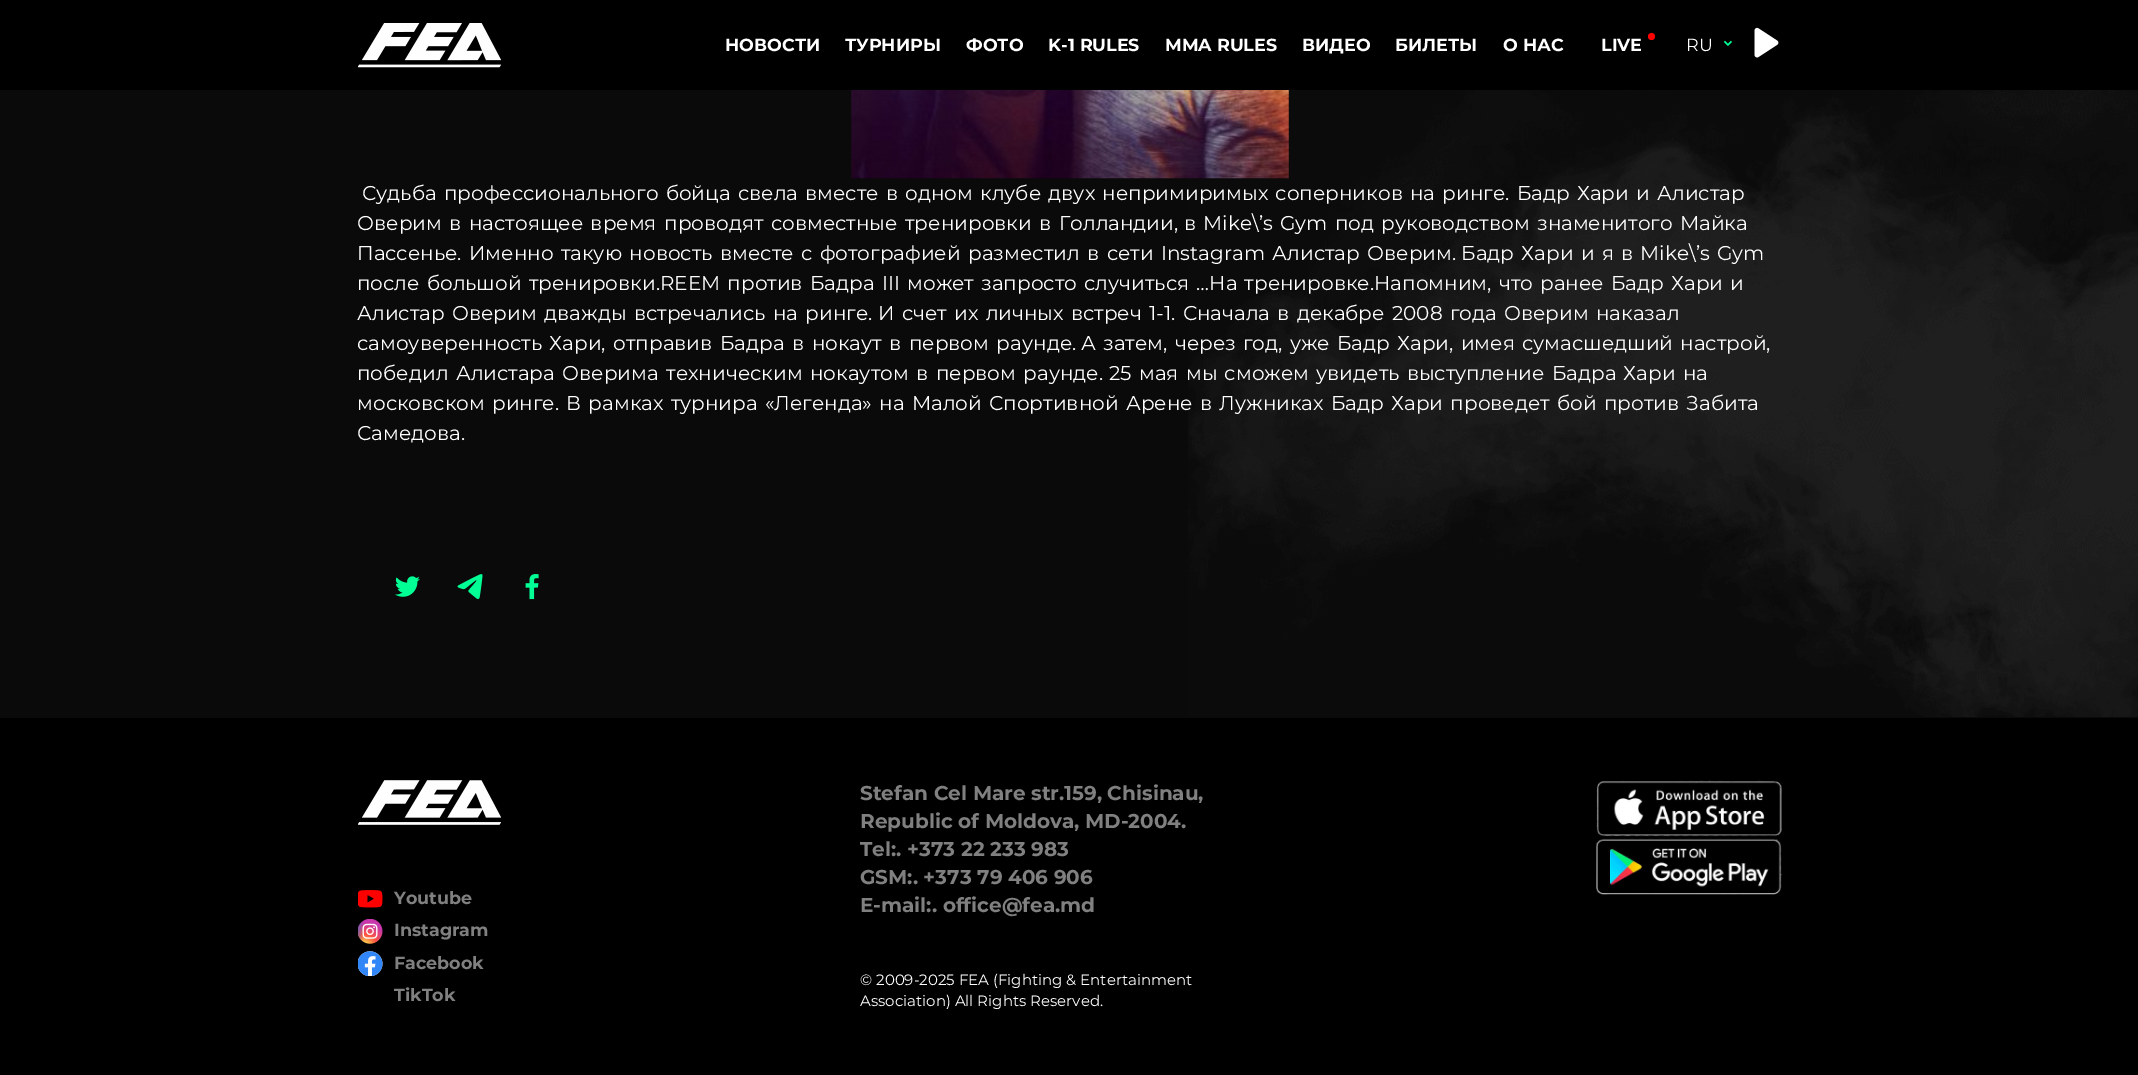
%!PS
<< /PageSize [2138 1075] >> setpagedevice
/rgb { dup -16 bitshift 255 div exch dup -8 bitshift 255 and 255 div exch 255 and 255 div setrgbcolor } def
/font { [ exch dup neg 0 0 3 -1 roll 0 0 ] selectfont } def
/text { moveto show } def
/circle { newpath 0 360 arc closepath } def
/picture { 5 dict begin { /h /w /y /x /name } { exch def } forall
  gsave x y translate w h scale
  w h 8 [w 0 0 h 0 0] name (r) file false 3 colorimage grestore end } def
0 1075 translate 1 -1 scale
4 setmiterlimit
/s1 { /Montserrat-Bold 17.5 font 16#FFFFFF rgb } def
/s2 { /Montserrat-Regular 17.5 font 16#FFFFFF rgb } def
/s3 { /Montserrat-Regular 20 font 16#FFFFFF rgb } def
/s4 { /Montserrat-Bold 17.5 font 16#808080 rgb } def
/s5 { /Montserrat-Bold 20 font 16#808080 rgb } def
/s6 { /Montserrat-Regular 15 font 16#FFFFFF rgb } def
16#0A0A0A rgb
0 0 2138 1075 rectfill
16#000000 rgb
0 0 2138 90 rectfill
(pic1.raw) 358 23 143 45 picture
s1
(НОВОСТИ) 725 51 text
(ТУРНИРЫ) 845 51 text
(ФОТО) 966 51 text
(K-1 RULES) 1048 51 text
(MMA RULES) 1165 51 text
(ВИДЕО) 1302 51 text
(БИЛЕТЫ) 1395 51 text
(О НАС) 1503 51 text
16#FF0000 rgb
1651.5 36.5 3.5 circle fill
s1
(LIVE) 1601 51 text
s2
(RU) 1686 51 text
(pic2.raw) 1723 40 9 6 picture
(pic3.raw) 1754 27 25 31 picture
(pic4.raw) 1188 90 950 627 picture
(pic5.raw) 851 90 438 89 picture
/Montserrat-Regular 20 font
362 200 moveto 2 0 32 (Судьба профессионального бойца свела вместе в одном клубе двух непримиримых соперников на ринге. Бадр Хари и Алистар) widthshow
357 230 moveto 2.25 0 32 (Оверим в настоящее время проводят совместные тренировки в Голландии,) widthshow
1184 230 moveto 2 0 32 (в Mike\\’s Gym под руководством знаменитого Майка) widthshow
357 260 moveto 2.25 0 32 (Пассенье. Именно такую новость вместе с фотографией разместил в сети Instagram Алистар Оверим.) widthshow
1461 260 moveto 2 0 32 (Бадр Хари и я в Mike\\’s Gym) widthshow
357 290 moveto 2 0 32 (после большой тренировки.REEM против Бадра III может запросто случиться …На тренировке.Напомним, что ранее Бадр Хари и) widthshow
357 320 moveto 2.25 0 32 (Алистар Оверим дважды встречались на ринге.) widthshow
878 320 moveto 2 0 32 (И счет их личных встреч 1-1. Сначала в декабре 2008 года Оверим наказал) widthshow
357 350 moveto 2.25 0 32 (самоуверенность Хари, отправив Бадра в нокаут в первом раунде.) widthshow
1081 350 moveto 2 0 32 (А затем, через год, уже Бадр Хари, имея сумасшедший настрой,) widthshow
357 380 moveto 2.25 0 32 (победил Алистара Оверима техническим нокаутом в первом раунде.) widthshow
1109 380 moveto 2 0 32 (25 мая мы сможем увидеть выступление Бадра Хари на) widthshow
357 410 moveto 2 0 32 (московском ринге. В рамках турнира «Легенда» на Малой Спортивной Арене в Лужниках Бадр Хари проведет бой против Забита) widthshow
(Самедова.) 357 440 text
(pic6.raw) 395 576 25 21 picture
(pic7.raw) 457 574 26 25 picture
(pic8.raw) 525 574 14 26 picture
16#000000 rgb
0 718 2138 357 rectfill
(pic9.raw) 358 780 143 45 picture
(pic10.raw) 358 890 25 18 picture
s4
(Youtube) 394 904 text
(pic11.raw) 358 919 25 25 picture
(Instagram) 394 936 text
(pic12.raw) 358 951 25 25 picture
(Facebook) 394 969 text
(TikTok) 394 1001 text
s5
(Stefan Cel Mare str.159, Chisinau,) 860 800 text
(Republic of Moldova, MD-2004.) 860 828 text
(Tel:. +373 22 233 983) 860 856 text
(GSM:. +373 79 406 906) 860 884 text
(E-mail:. office@fea.md) 860 912 text
s6
(© 2009-2025 FEA \(Fighting & Entertainment) 860 985 text
(Association\) All Rights Reserved.) 860 1006 text
(pic13.raw) 1596 780 186 57 picture
(pic14.raw) 1596 838 186 57 picture
showpage
